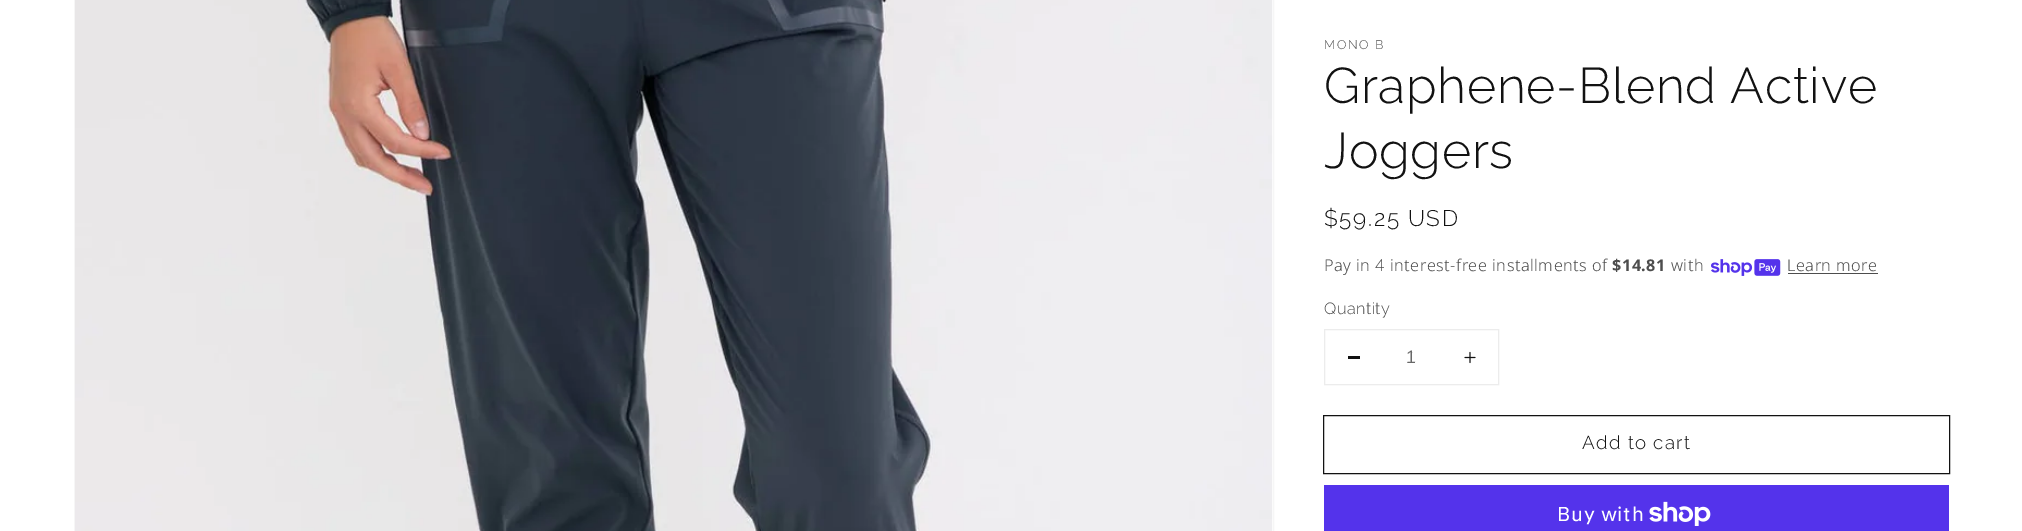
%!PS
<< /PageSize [2022 531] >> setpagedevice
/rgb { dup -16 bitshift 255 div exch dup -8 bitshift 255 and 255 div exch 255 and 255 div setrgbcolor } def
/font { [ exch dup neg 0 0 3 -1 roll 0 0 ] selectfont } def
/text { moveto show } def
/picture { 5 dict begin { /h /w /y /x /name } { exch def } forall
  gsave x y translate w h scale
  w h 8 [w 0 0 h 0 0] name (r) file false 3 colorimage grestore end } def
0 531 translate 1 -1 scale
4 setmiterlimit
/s1 { /LiberationSans-Regular 18 font 16#686868 rgb } def
16#FFFFFF rgb
0 0 2022 531 rectfill
16#F6F6F6 rgb
74.5 -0.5 1199 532 rectstroke
(pic1.raw) 75 0 1198 531 picture
/Raleway-Light 12.5 font
16#4D4D4D rgb
1324 49 moveto 1.6 0 (MONO B) ashow
/Raleway-Light 50 font
16#121212 rgb
1324 103 moveto 0.75 0 (Graphene-Blend Active) ashow
1324 168 moveto 0.75 0 (Joggers) ashow
/Raleway-Light 22.5 font
1324 226 moveto 1.6 0 ($59.25 USD) ashow
/NotoSans-Light 16.25 font
16#4D4D4D rgb
1324 271 moveto 0.5 0 (Pay in 4 interest-free installments of) ashow
/NotoSans-Bold 16.25 font
1612 271 moveto 0.5 0 ($14.81) ashow
/NotoSans-Light 16.25 font
1671 271 moveto 0.5 0 (with) ashow
(pic2.raw) 1711 259 70 17 picture
1787 271 moveto 0.5 0 (Learn more) ashow
1788 273 90 1 rectfill
/Raleway-Light 16.25 font
1324 314 moveto 0.5 0 (Quantity) ashow
16#ECECEC rgb
1324.5 329.5 174 55 rectstroke
16#121212 rgb
1348 356 12 3 rectfill
s1
(1) 1406 363 text
(pic3.raw) 1464 351 12 13 picture
16#121212 rgb
1323.5 415.5 626 58 rectstroke
/Raleway-Light 18.75 font
1582 449 moveto 1.25 0 (Add to cart) ashow
16#5433EB rgb
1324 485 625 46 rectfill
/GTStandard-Regular 20 font
16#FFFFFF rgb
1557 521 moveto 0.75 0 (Buy with) ashow
(pic4.raw) 1649 501 62 25 picture
showpage
